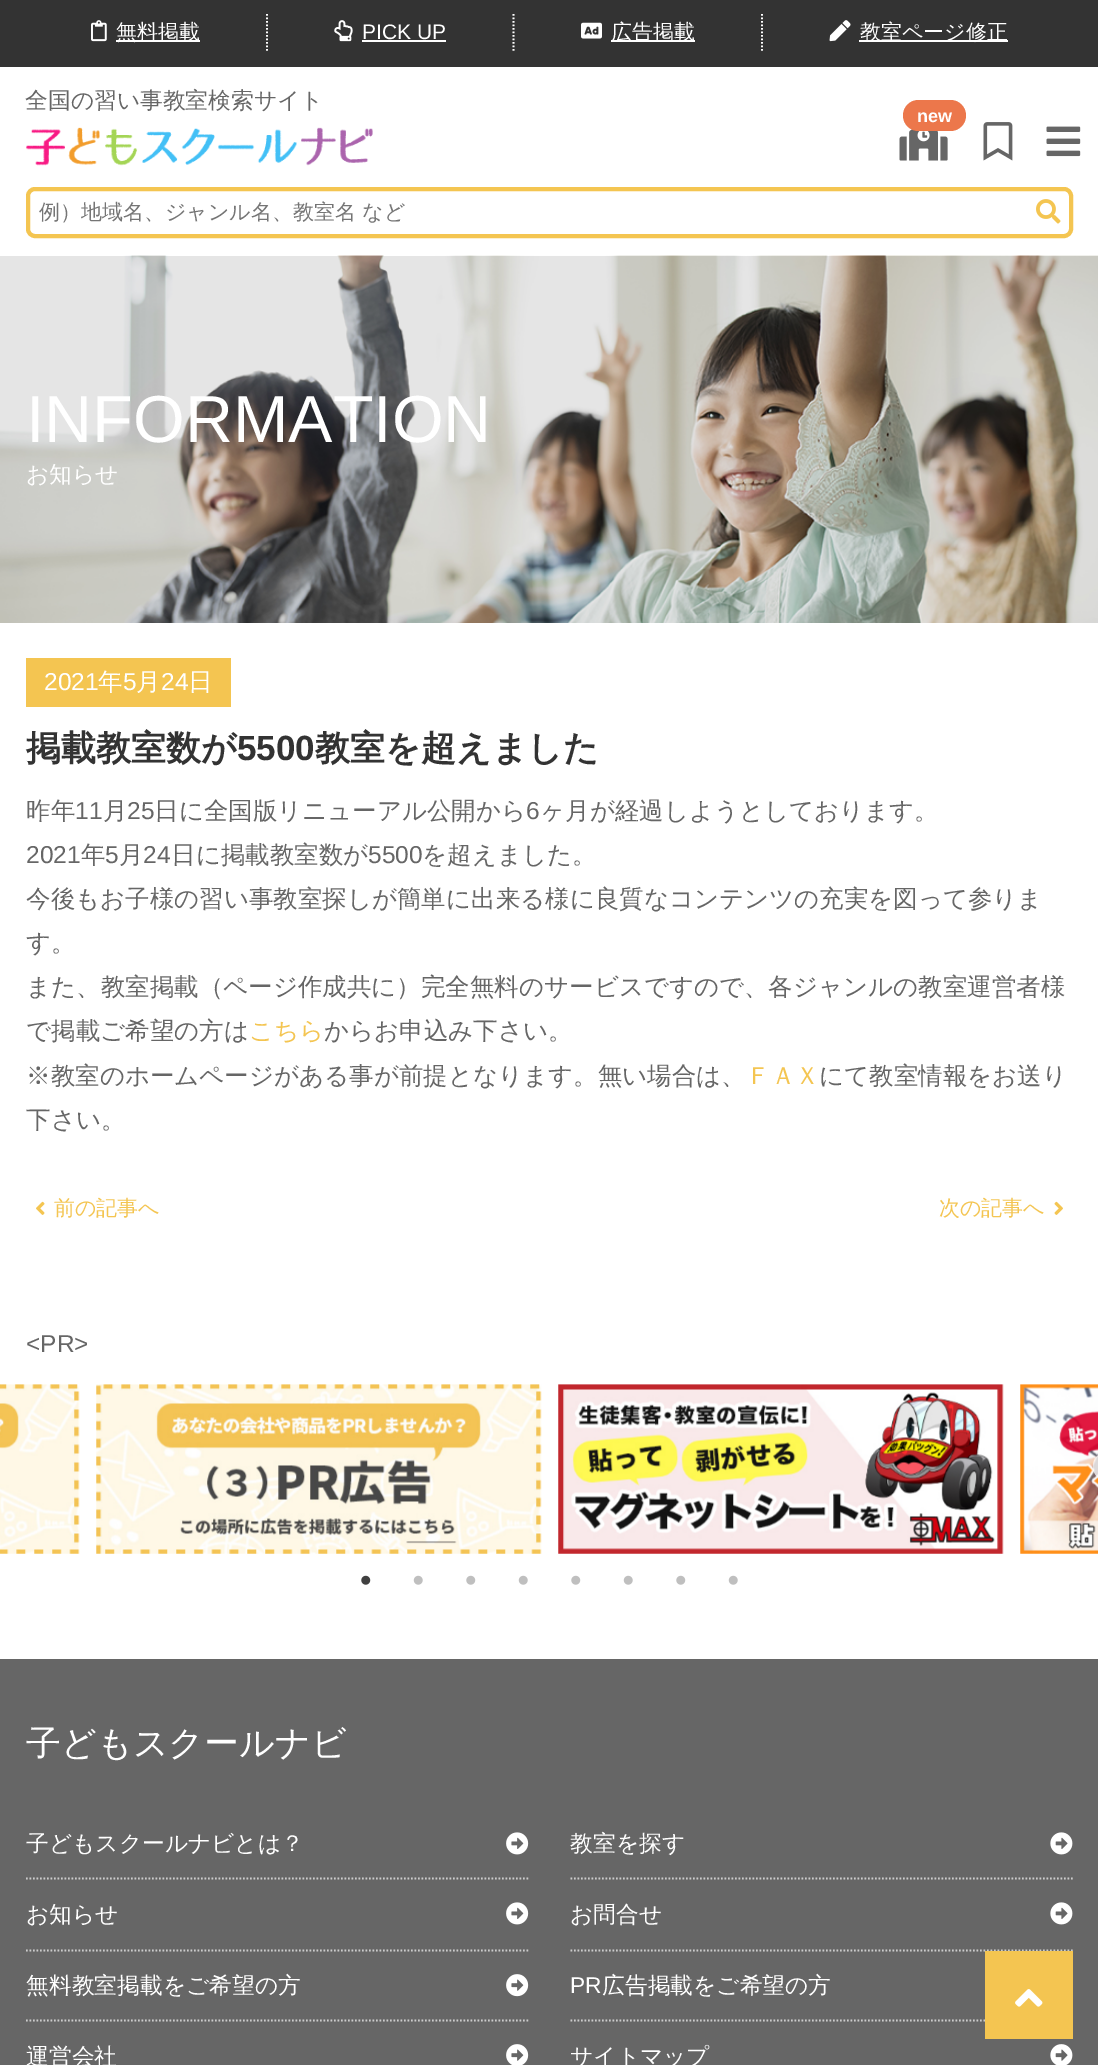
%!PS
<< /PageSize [1098 2065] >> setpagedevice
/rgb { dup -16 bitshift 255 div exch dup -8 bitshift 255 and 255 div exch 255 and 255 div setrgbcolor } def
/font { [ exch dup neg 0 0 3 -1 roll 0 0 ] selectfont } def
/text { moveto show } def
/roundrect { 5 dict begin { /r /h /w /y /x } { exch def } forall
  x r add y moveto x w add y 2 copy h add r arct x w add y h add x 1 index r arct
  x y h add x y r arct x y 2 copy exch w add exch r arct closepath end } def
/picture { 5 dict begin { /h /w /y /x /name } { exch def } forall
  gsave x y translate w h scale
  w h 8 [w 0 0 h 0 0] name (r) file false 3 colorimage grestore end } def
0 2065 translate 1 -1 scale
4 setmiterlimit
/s1 { /WenQuanYiZenHei-Medium 21 font 16#FFFFFF rgb } def
/s2 { /LiberationSans-Regular 21 font 16#FFFFFF rgb } def
/s3 { /WenQuanYiZenHei-Medium 22.75 font 16#666666 rgb } def
/s4 { /LiberationSans-Bold 18 font 16#FFFFFF rgb } def
/s5 { /WenQuanYiZenHei-Medium 21 font 16#757575 rgb } def
/s6 { /LiberationSans-Regular 66.5 font 16#FFFFFF rgb } def
/s7 { /WenQuanYiZenHei-Medium 22.75 font 16#FFFFFF rgb } def
/s8 { /LiberationSans-Regular 24.5 font 16#FFFFFF rgb } def
/s9 { /WenQuanYiZenHei-Medium 24.5 font 16#FFFFFF rgb } def
/s10 { /WenQuanYiZenHei-Bold 35 font 16#333333 rgb } def
/s11 { /LiberationSans-Bold 35 font 16#333333 rgb } def
/s12 { /WenQuanYiZenHei-Medium 24.5 font 16#666666 rgb } def
/s13 { /LiberationSans-Regular 24.5 font 16#666666 rgb } def
/s14 { /WenQuanYiZenHei-Medium 24.5 font 16#F4C551 rgb } def
/s15 { /WenQuanYiZenHei-Medium 21 font 16#F4C551 rgb } def
/s16 { /WenQuanYiZenHei-Medium 35 font 16#FFFFFF rgb } def
/s17 { /LiberationSans-Regular 22.75 font 16#FFFFFF rgb } def
16#FFFFFF rgb
0 0 1098 2065 rectfill
16#333333 rgb
0 0 1098 67 rectfill
16#FFFFFF rgb
1.8 setlinewidth
[1.75 1.75] 0 setdash
267 14 moveto 267 52.5 lineto stroke
(pic1.raw) 91 20 16 22 picture
116 40 84 2 rectfill
s1
(無料掲載) 116 39 text
513.5 14 moveto 513.5 52.5 lineto stroke
(pic2.raw) 334 20 19 22 picture
s2
(PICK UP) 362 39 text
362 40 84 2 rectfill
762 14 moveto 762 52.5 lineto stroke
(pic3.raw) 581 22 21 17 picture
611 40 84 2 rectfill
s1
(広告掲載) 611 39 text
(pic4.raw) 829 20 22 22 picture
859 40 149 2 rectfill
(教室ページ修正) 860 39 text
s3
(全国の習い事教室検索サイト) 25 108 text
(pic5.raw) 26 127 347 39 picture
(pic6.raw) 899 129 49 32 picture
16#EC774B rgb
903 100 63 31 15.5 roundrect fill
s4
(new) 917 122 text
(pic7.raw) 983 122 30 39 picture
(pic8.raw) 1046 126 35 31 picture
16#F4C551 rgb
4 setlinewidth
[] 0 setdash
28 189 1043 47 7 roundrect stroke
s5
(例）地域名、ジャンル名、教室名 など) 39 219 text
(pic9.raw) 1036 199 25 25 picture
(pic10.raw) 0 255 1098 368 picture
s6
(INFORMATION) 26 442 text
s7
(お知らせ) 26 482 text
16#F4C551 rgb
26 658 205 49 rectfill
s8
(2021) 44 690 text
s9
(年) 98 690 text
s8
(5) 123 690 text
s9
(月) 136 690 text
s8
(24) 161 690 text
s9
(日) 188 690 text
s10
(掲載教室数が) 26 760 text
s11
(5500) 237 760 text
s10
(教室を超えました) 315 760 text
s12
(昨年) 26 819 text
s13
(11) 75 819 text
s12
(月) 103 819 text
s13
(25) 127 819 text
s12
(日に全国版リニューアル公開から) 154 819 text
s13
(6) 526 819 text
s12
(ヶ月が経過しようとしております。) 540 819 text
s13
(2021) 26 863 text
s12
(年) 81 863 text
s13
(5) 105 863 text
s12
(月) 119 863 text
s13
(24) 143 863 text
s12
(日に掲載教室数が) 171 863 text
s13
(5500) 368 863 text
s12
(を超えました。) 422 863 text
(今後もお子様の習い事教室探しが簡単に出来る様に良質なコンテンツの充実を図って参りま) 26 907 text
(す。) 26 951 text
(また、教室掲載（ページ作成共に）完全無料のサービスですので、各ジャンルの教室運営者様) 26 995 text
(で掲載ご希望の方は) 26 1039 text
s14
(こちら) 249 1039 text
s12
(からお申込み下さい。) 324 1039 text
(※教室のホームページがある事が前提となります。無い場合は、) 26 1084 text
s14
(ＦＡＸ) 746 1084 text
s12
(にて教室情報をお送り) 819 1084 text
(下さい。) 26 1128 text
(pic11.raw) 36 1201 9 14 picture
s15
(前の記事へ) 54 1215 text
(次の記事へ) 939 1215 text
(pic12.raw) 1054 1201 9 14 picture
s13
(<PR>) 26 1352 text
(pic13.raw) 0 1384 80 170 picture
(pic14.raw) 96 1384 446 170 picture
(pic15.raw) 558 1384 446 170 picture
(pic16.raw) 1020 1384 78 170 picture
(pic17.raw) 1092 1455 6 23 picture
(pic18.raw) 361 1575 10 10 picture
(pic19.raw) 413 1575 10 10 picture
(pic20.raw) 466 1575 10 10 picture
(pic19.raw) 518 1575 10 10 picture
(pic20.raw) 571 1575 10 10 picture
(pic19.raw) 623 1575 10 10 picture
(pic20.raw) 676 1575 10 10 picture
(pic19.raw) 728 1575 10 10 picture
0 1659 1098 406 rectfill
s16
(子どもスクールナビ) 26 1755 text
16#CCCCCC rgb
1.8 setlinewidth
[1.75 1.75] 0 setdash
26 1878.5 moveto 528.5 1878.5 lineto stroke
s7
(子どもスクールナビとは？) 26 1851 text
(pic21.raw) 506 1832 23 23 picture
16#CCCCCC rgb
570.5 1878.5 moveto 1073 1878.5 lineto stroke
s7
(教室を探す) 570 1851 text
(pic22.raw) 1050 1832 23 23 picture
16#CCCCCC rgb
26 1950.5 moveto 528.5 1950.5 lineto stroke
s7
(お知らせ) 26 1922 text
(pic21.raw) 506 1902 23 23 picture
16#CCCCCC rgb
570.5 1950.5 moveto 1073 1950.5 lineto stroke
s7
(お問合せ) 570 1922 text
(pic22.raw) 1050 1902 23 23 picture
16#CCCCCC rgb
26 2020.5 moveto 528.5 2020.5 lineto stroke
s7
(無料教室掲載をご希望の方) 26 1993 text
(pic23.raw) 506 1974 23 23 picture
16#CCCCCC rgb
570.5 2020.5 moveto 1073 2020.5 lineto stroke
s17
(PR) 570 1993 text
s7
(広告掲載をご希望の方) 602 1993 text
(運営会社) 26 2064 text
(pic24.raw) 506 2044 23 21 picture
(サイトマップ) 570 2064 text
(pic25.raw) 1050 2044 23 21 picture
16#F4C551 rgb
985 1951 88 88 rectfill
(pic26.raw) 1015 1989 28 18 picture
showpage
